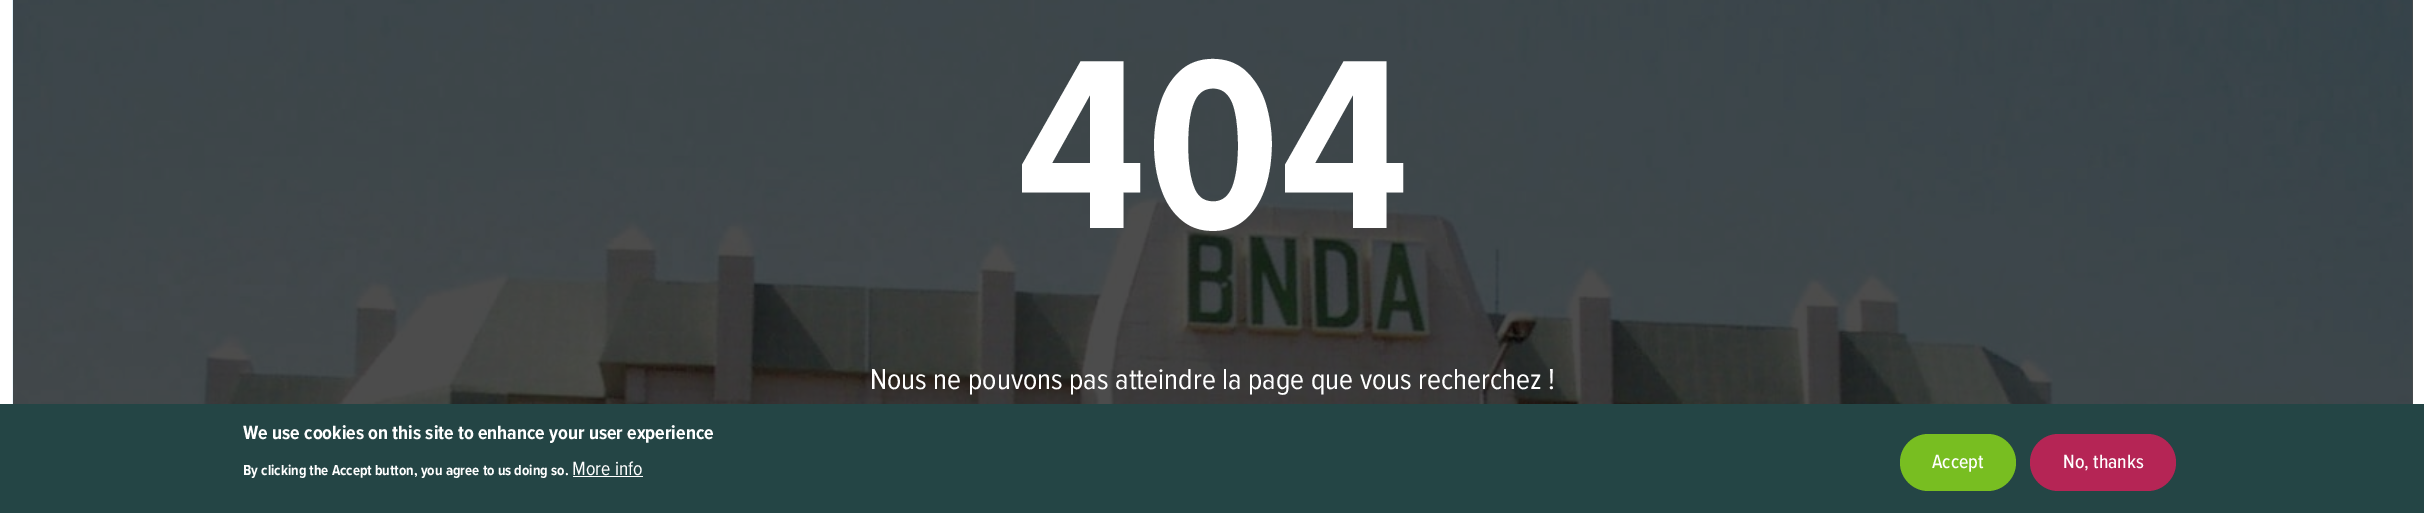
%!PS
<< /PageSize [2424 513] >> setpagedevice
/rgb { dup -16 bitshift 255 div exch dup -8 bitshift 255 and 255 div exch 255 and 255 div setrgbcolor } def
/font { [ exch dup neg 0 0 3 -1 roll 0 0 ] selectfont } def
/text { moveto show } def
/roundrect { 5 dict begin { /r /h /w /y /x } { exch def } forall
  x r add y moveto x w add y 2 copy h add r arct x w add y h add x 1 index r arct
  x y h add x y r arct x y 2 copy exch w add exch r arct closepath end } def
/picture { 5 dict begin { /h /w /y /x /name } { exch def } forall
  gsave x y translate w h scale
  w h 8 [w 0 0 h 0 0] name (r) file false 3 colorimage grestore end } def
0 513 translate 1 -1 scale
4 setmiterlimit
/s1 { /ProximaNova-Bold 250 font 16#FFFFFF rgb } def
/s2 { /ProximaNova-Regular 30 font 16#FFFFFF rgb } def
/s3 { /ProximaNova-Bold 20 font 16#FFFFFF rgb } def
/s4 { /ProximaNova-Bold 15 font 16#FFFFFF rgb } def
/s5 { /ProximaNova-Regular 20 font 16#FFFFFF rgb } def
/s6 { /ProximaNova-Medium 20 font 16#FFFFFF rgb } def
16#FFFFFF rgb
0 0 2424 513 rectfill
16#4D4D4D rgb
2412 0 1 404 rectfill
(pic1.raw) 12 0 2401 404 picture
s1
(404) 1017 228 text
s2
(Nous ne pouvons pas atteindre la page que vous recherchez !) 870 389 text
16#244545 rgb
0 404 2424 109 rectfill
s3
(We use cookies on this site to enhance your user experience) 243 439 text
s4
(By clicking the Accept button, you agree to us doing so.) 243 475 text
s5
(More info) 572 475 text
573 476 70 1 rectfill
16#78BE21 rgb
1900 434 116 57 28.5 roundrect fill
s6
(Accept) 1932 468 text
16#B52555 rgb
2030 434 146 57 28.5 roundrect fill
s6
(No, thanks) 2063 468 text
showpage
